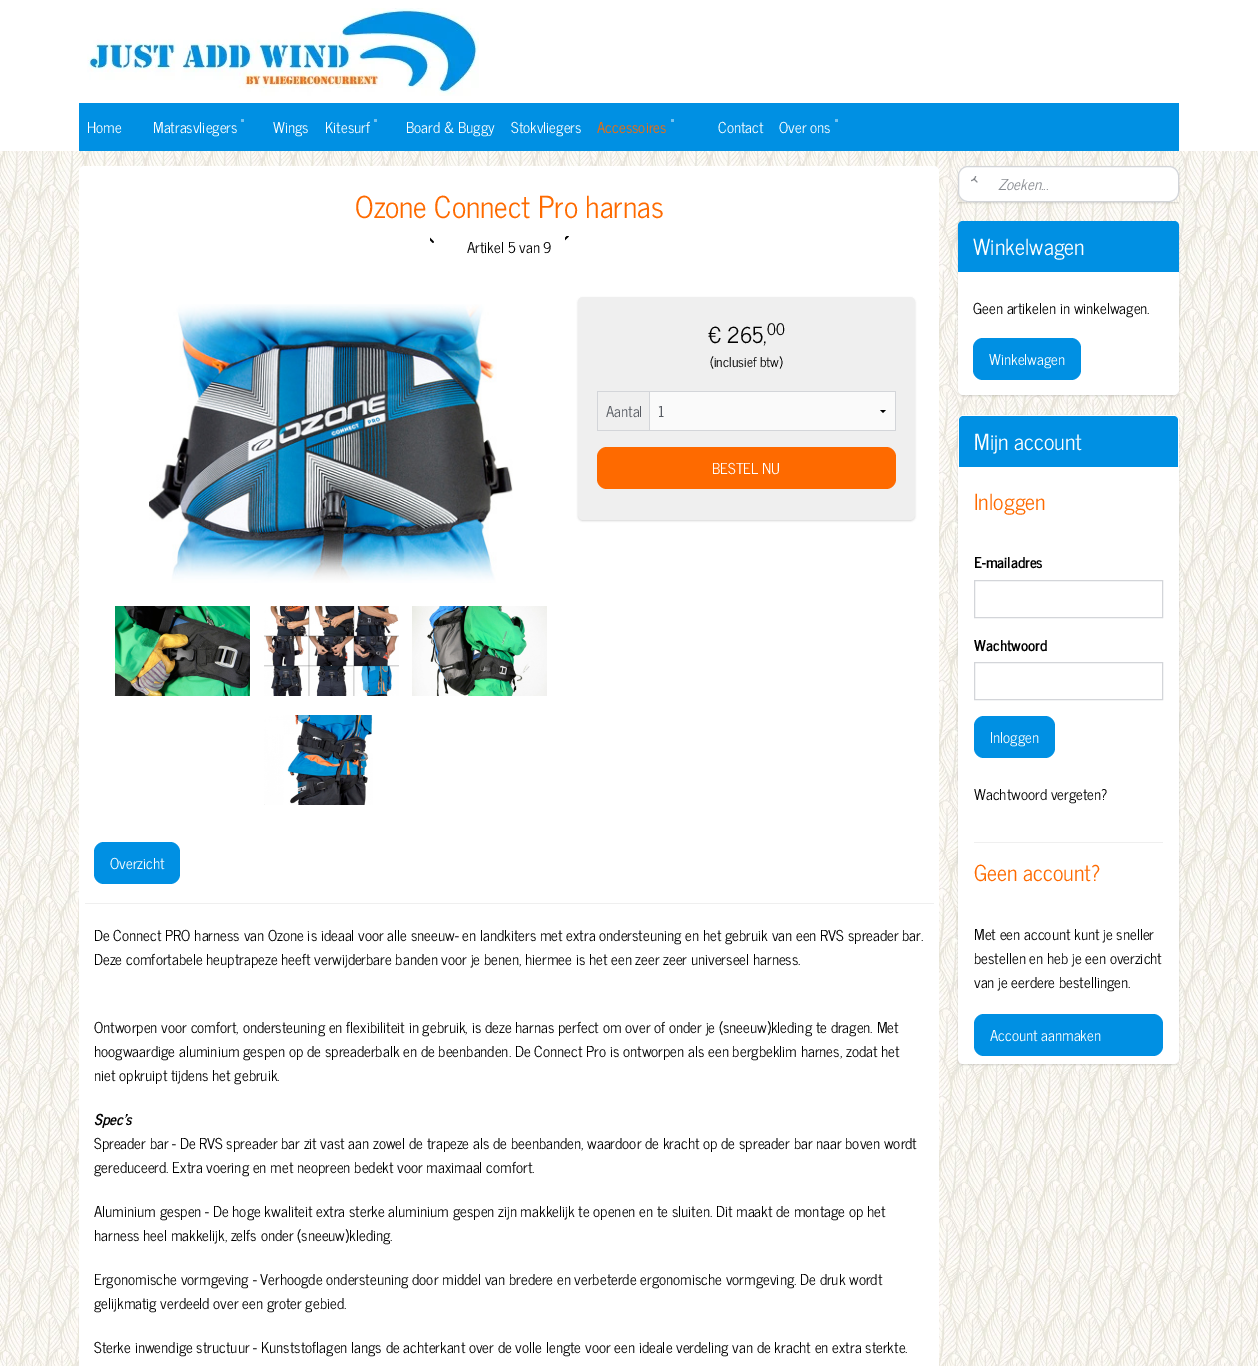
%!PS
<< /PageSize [1258 1366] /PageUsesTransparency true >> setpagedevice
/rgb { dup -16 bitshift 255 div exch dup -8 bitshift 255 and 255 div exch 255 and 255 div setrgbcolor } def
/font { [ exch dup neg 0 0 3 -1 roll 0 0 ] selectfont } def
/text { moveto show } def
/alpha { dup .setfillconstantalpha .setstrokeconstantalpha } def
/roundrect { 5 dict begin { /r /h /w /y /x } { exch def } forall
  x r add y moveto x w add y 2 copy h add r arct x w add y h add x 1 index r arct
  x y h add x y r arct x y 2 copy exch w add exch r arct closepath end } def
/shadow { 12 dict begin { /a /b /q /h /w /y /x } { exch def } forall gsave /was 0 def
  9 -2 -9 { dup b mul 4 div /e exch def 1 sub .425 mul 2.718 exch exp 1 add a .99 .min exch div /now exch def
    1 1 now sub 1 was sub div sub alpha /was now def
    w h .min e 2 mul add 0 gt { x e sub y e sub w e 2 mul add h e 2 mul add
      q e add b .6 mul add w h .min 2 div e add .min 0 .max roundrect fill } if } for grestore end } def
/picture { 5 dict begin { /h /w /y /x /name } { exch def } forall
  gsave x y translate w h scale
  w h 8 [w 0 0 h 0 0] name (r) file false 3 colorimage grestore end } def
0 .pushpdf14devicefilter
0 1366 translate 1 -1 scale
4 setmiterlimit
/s1 { /NewsCycle-Regular 15 font 16#FFFFFF rgb } def
/s2 { /NewsCycle-Regular 15 font 16#FE6A00 rgb } def
/s3 { /NewsCycle-Regular 30 font 16#FE6A00 rgb } def
/s4 { /NewsCycle-Regular 15 font 16#000000 rgb } def
/s5 { /NewsCycle-Regular 22 font 16#000000 rgb } def
/s6 { /NewsCycle-Regular 16 font 16#000000 rgb } def
/s7 { /NewsCycle-Regular 13.5 font 16#000000 rgb } def
/s8 { /NewsCycle-Regular 15 font 16#575B62 rgb } def
/s9 { /NewsCycle-BoldItalic 15 font 16#000000 rgb } def
/s10 { /NewsCycle-Italic 15 font 16#898C91 rgb } def
/s11 { /NewsCycle-Regular 22 font 16#FFFFFF rgb } def
/s12 { /NewsCycle-Regular 22 font 16#FE6A00 rgb } def
/s13 { /NewsCycle-Bold 15 font 16#000000 rgb } def
16#FFFFFF rgb
0 0 1258 1366 rectfill
(pic1.raw) 0 151 1258 1215 picture
(pic2.raw) 87 8 392 88 picture
16#0090E3 rgb
79 103 1100 48 rectfill
s1
(Home) 87 133 text
16#73C2F0 rgb
241 119 3 3 rectfill
s1
(Matrasvliegers) 153 133 text
(Wings) 273 133 text
16#73C2F0 rgb
374 119 3 3 rectfill
s1
(Kitesurf) 325 133 text
(Board & Buggy) 406 133 text
(Stokvliegers) 511 133 text
16#73C2F0 rgb
671 119 3 3 rectfill
s2
(Accessoires) 597 133 text
s1
(Contact) 718 133 text
16#73C2F0 rgb
835 119 3 3 rectfill
s1
(Over ons) 779 133 text
79 166 860 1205 5 roundrect fill
s3
(Ozone Connect Pro harnas) 355 218 text
(pic3.raw) 430 237 4 6 picture
(pic4.raw) 565 236 4 5 picture
s4
(Artikel 5 van 9) 467 253 text
(pic5.raw) 149 304 364 279 picture
(pic6.raw) 115 606 135 90 picture
(pic7.raw) 264 606 135 90 picture
(pic8.raw) 412 606 135 90 picture
(pic9.raw) 264 715 109 90 picture
578 298 337 223 5 1 0.15 shadow
16#EFEFEF rgb
578 297 337 223 5 roundrect fill
s5
(€ 265,) 708 343 text
s6
(00) 767 335 text
s7
(\(inclusief btw\)) 710 367 text
16#D3D5D9 rgb
597 391 299 1 rectfill
895 391 1 40 rectfill
649 392 1 39 rectfill
597 430 299 1 rectfill
597 391 1 40 rectfill
s8
(Aantal) 606 417 text
16#FAFAFA rgb
650 392 245 38 rectfill
16#000000 rgb
886 410 moveto 883 413 lineto 880 410 lineto closepath fill
s8
(1) 658 417 text
16#FE6A00 rgb
597 447 299 42 10 roundrect fill
s1
(BESTEL NU) 712 474 text
16#0090E3 rgb
94 842 86 42 10 roundrect fill
s1
(Overzicht) 110 869 text
16#EFEFEF rgb
85 903 849 1 rectfill
s4
(De Connect PRO harness van Ozone is ideaal voor alle sneeuw- en landkiters met extra ondersteuning en het gebruik van een RVS spreader bar.) 94 941 text
(Deze comfortabele heuptrapeze heeft verwijderbare banden voor je benen, hiermee is het een zeer zeer universeel harness.) 94 965 text
(Ontworpen voor comfort, ondersteuning en flexibiliteit in gebruik, is deze harnas perfect om over of onder je \(sneeuw\)kleding te dragen. Met) 94 1033 text
(hoogwaardige aluminium gespen op de spreaderbalk en de beenbanden. De Connect Pro is ontworpen als een bergbeklim harnes, zodat het) 94 1057 text
(niet opkruipt tijdens het gebruik.) 94 1081 text
s9
(Spec's) 94 1125 text
s4
(Spreader bar - De RVS spreader bar zit vast aan zowel de trapeze als de beenbanden, waardoor de kracht op de spreader bar naar boven wordt) 94 1149 text
(gereduceerd. Extra voering en met neopreen bedekt voor maximaal comfort.) 94 1173 text
(Aluminium gespen - De hoge kwaliteit extra sterke aluminium gespen zijn makkelijk te openen en te sluiten. Dit maakt de montage op het) 94 1217 text
(harness heel makkelijk, zelfs onder \(sneeuw\)kleding.) 94 1241 text
(Ergonomische vormgeving - Verhoogde ondersteuning door middel van bredere en verbeterde ergonomische vormgeving. De druk wordt) 94 1285 text
(gelijkmatig verdeeld over een groter gebied.) 94 1309 text
(Sterke inwendige structuur - Kunststoflagen langs de achterkant over de volle lengte voor een ideale verdeling van de kracht en extra sterkte.) 94 1353 text
gsave
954 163 moveto 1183 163 lineto 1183 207 lineto 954 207 lineto closepath 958 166 moveto 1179 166 lineto 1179 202 lineto 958 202 lineto closepath eoclip newpath
958 167 221 36 0 1 0.15 shadow
grestore
16#FFFFFF rgb
958.5 166.5 220 35 9.5 roundrect gsave fill grestore
16#D3D5D9 rgb
stroke
(pic10.raw) 971 176 7 7 picture
s10
(Zoeken...) 998 190 text
16#000000 rgb
958 222 221 174 5 1 0.15 shadow
16#FFFFFF rgb
958 221 221 174 5 roundrect fill
16#0090E3 rgb
963 221 moveto 1174 221 lineto 1177 221 1179 223 1179 226 curveto 1179 272 lineto 958 272 lineto 958 226 lineto 958 223 960 221 963 221 curveto closepath fill
s11
(Winkelwagen) 973 255 text
s4
(Geen artikelen in winkelwagen.) 973 314 text
16#0090E3 rgb
973 338 108 42 10 roundrect fill
s1
(Winkelwagen) 989 365 text
16#000000 rgb
958 416 221 649 5 1 0.15 shadow
16#FFFFFF rgb
958 415 221 649 5 roundrect fill
16#0090E3 rgb
963 416 moveto 1174 416 lineto 1176 416 1178 418 1178 420 curveto 1178 467 lineto 959 467 lineto 959 420 lineto 959 418 961 416 963 416 curveto closepath fill
s11
(Mijn account) 974 450 text
s12
(Inloggen) 974 510 text
s13
(E-mailadres) 974 568 text
16#D3D5D9 rgb
974.5 580.5 188 37 rectstroke
s13
(Wachtwoord) 974 651 text
16#D3D5D9 rgb
974.5 662.5 188 37 rectstroke
16#0090E3 rgb
974 716 81 42 10 roundrect fill
s1
(Inloggen) 990 743 text
s4
(Wachtwoord vergeten?) 974 800 text
16#EFEFEF rgb
974 842 189 1 rectfill
s12
(Geen account?) 974 881 text
s4
(Met een account kunt je sneller) 974 940 text
(bestellen en heb je een overzicht) 974 964 text
(van je eerdere bestellingen.) 974 988 text
16#0090E3 rgb
974 1014 189 42 10 roundrect fill
s1
(Account aanmaken) 990 1041 text
.poppdf14devicefilter showpage
